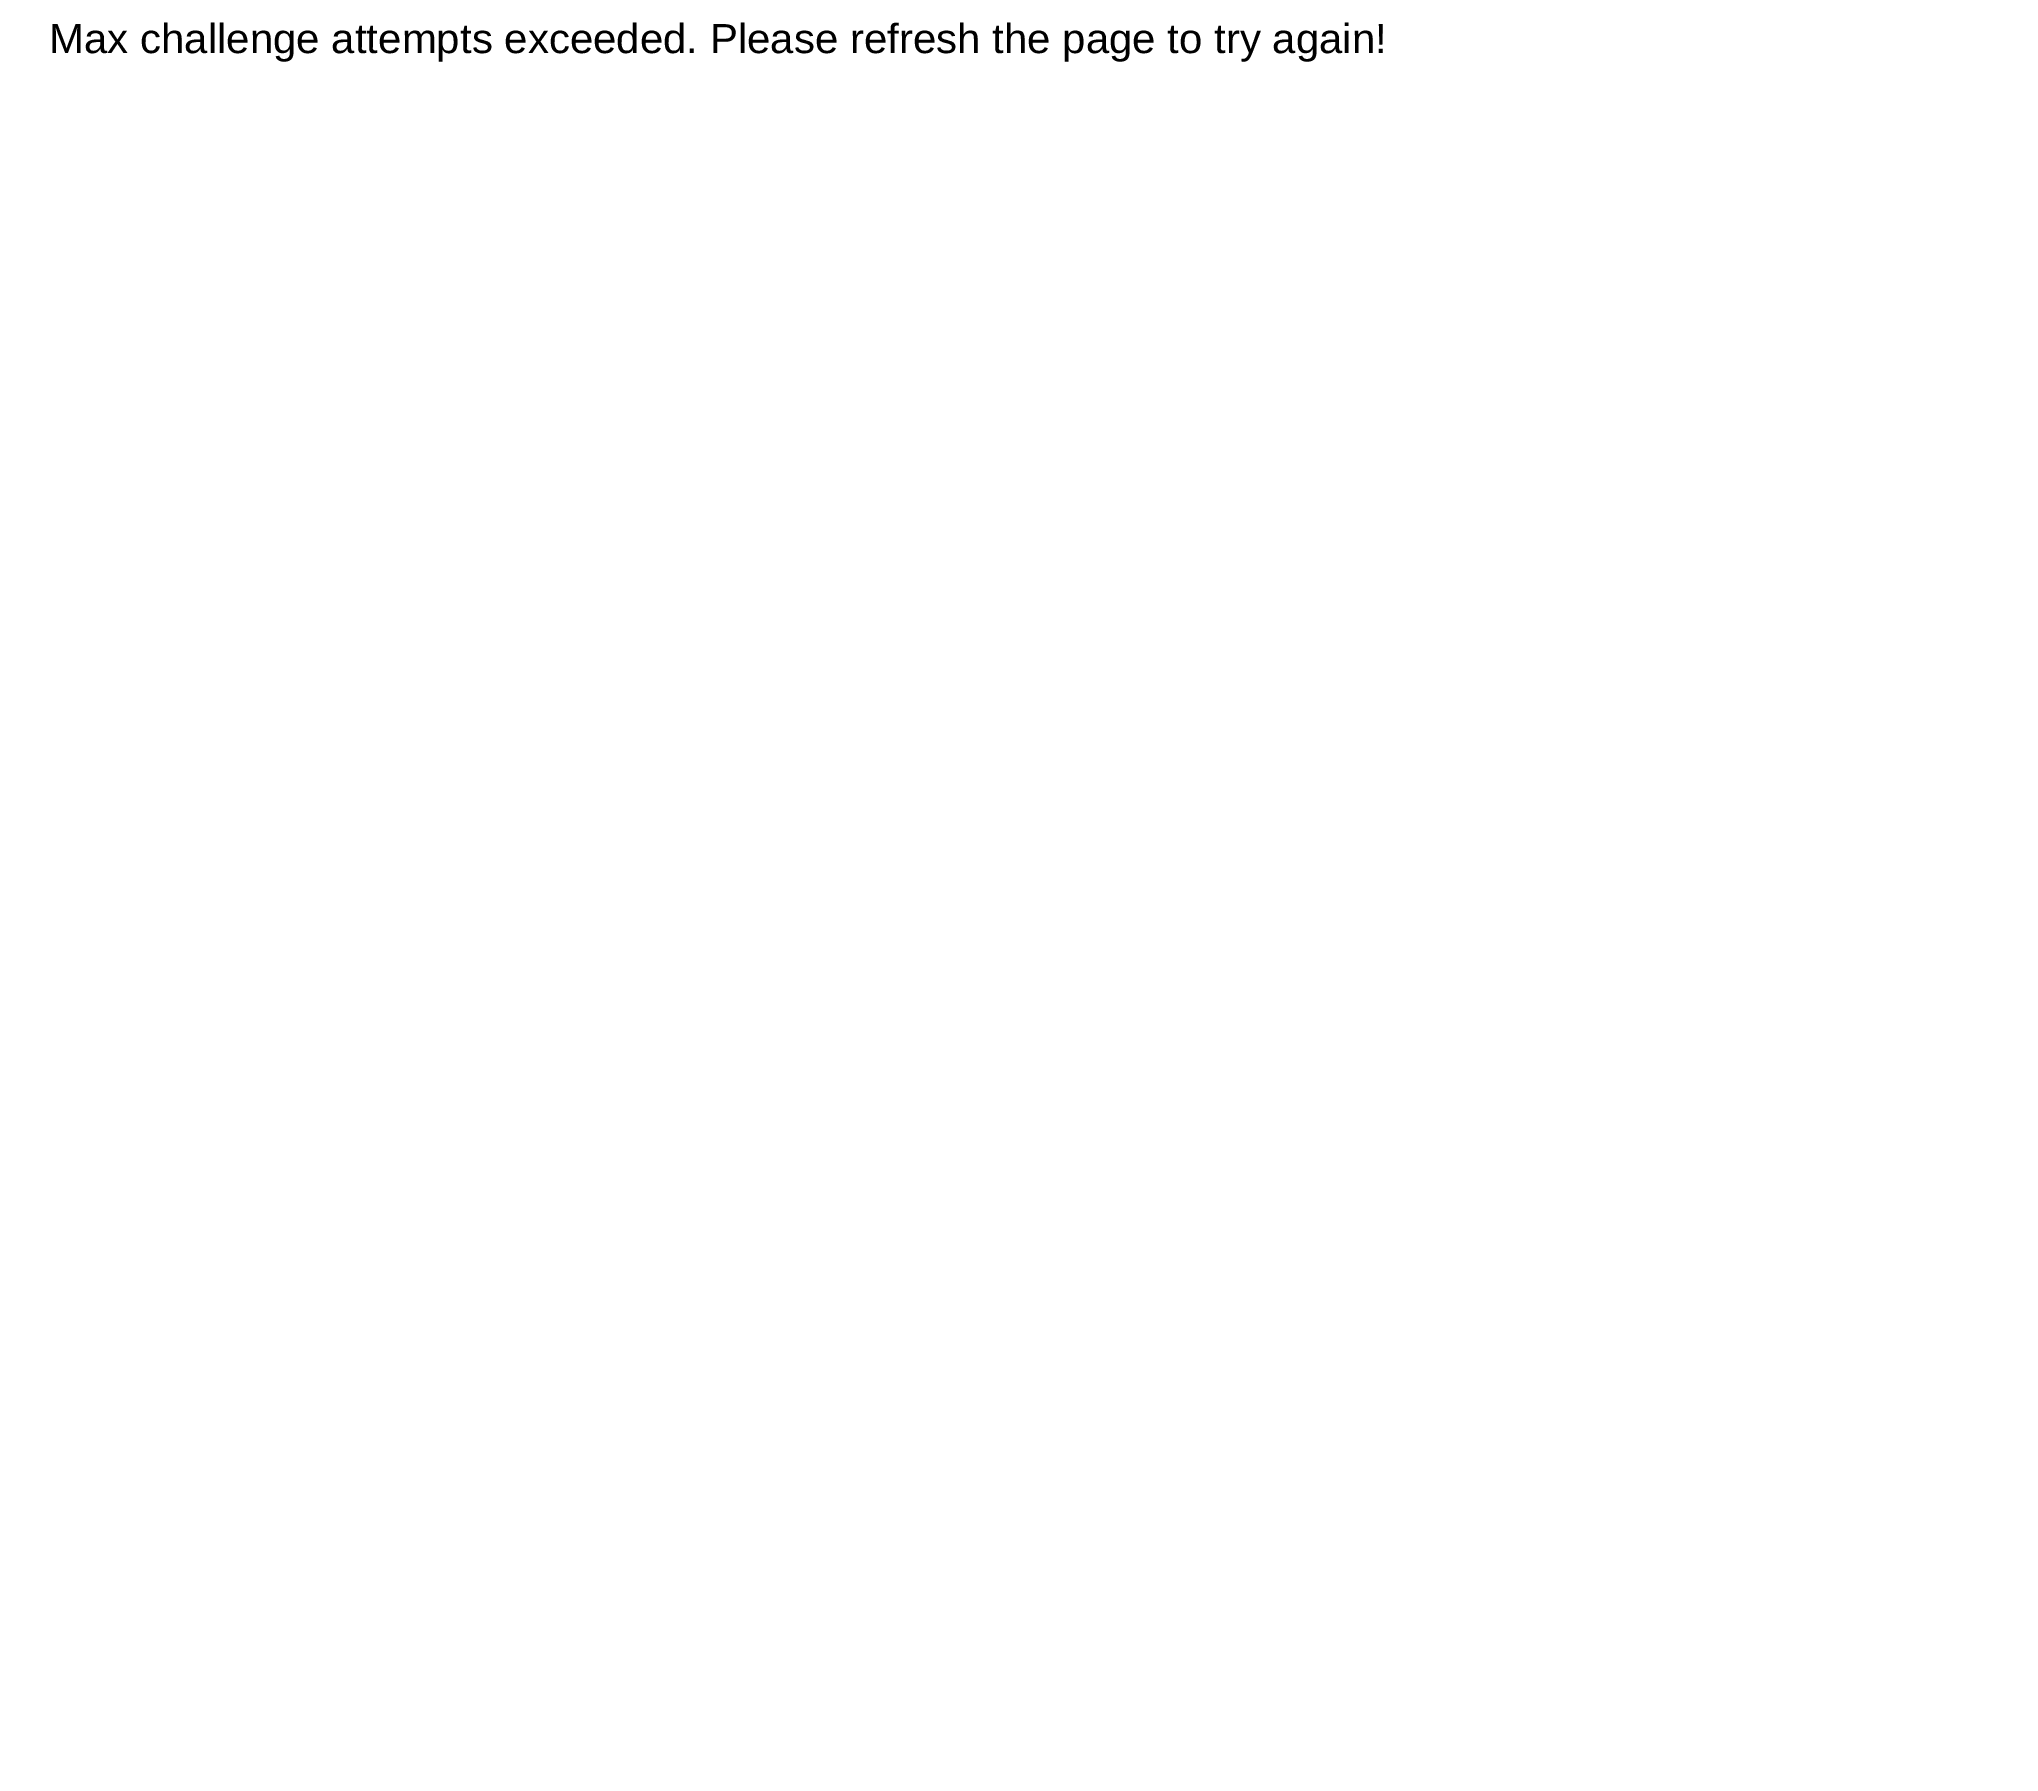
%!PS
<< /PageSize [2038 1791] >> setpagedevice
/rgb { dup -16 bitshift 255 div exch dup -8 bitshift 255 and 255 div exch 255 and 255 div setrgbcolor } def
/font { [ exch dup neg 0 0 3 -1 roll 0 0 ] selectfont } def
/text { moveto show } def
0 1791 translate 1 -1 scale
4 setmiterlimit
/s1 { /LiberationSans-Regular 42 font 16#000000 rgb } def
16#FFFFFF rgb
0 0 2038 1791 rectfill
s1
(Max challenge attempts exceeded. Please refresh the page to try again!) 49 53 text
showpage
